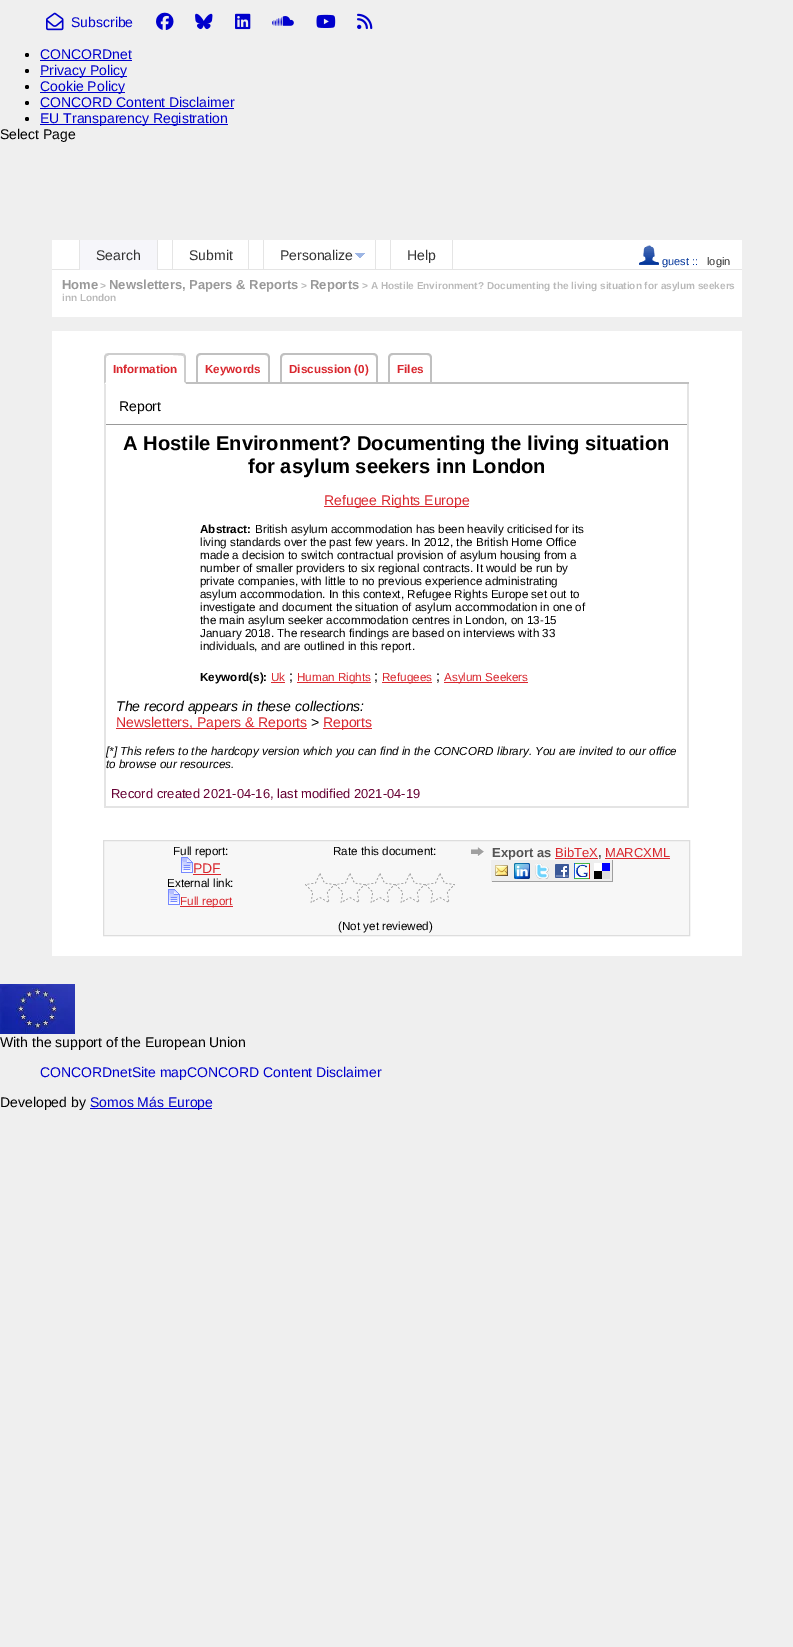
%!PS
<< /PageSize [793 1647] >> setpagedevice
/rgb { dup -16 bitshift 255 div exch dup -8 bitshift 255 and 255 div exch 255 and 255 div setrgbcolor } def
/font { [ exch dup neg 0 0 3 -1 roll 0 0 ] selectfont } def
/text { moveto show } def
/circle { newpath 0 360 arc closepath } def
/picture { 5 dict begin { /h /w /y /x /name } { exch def } forall
  gsave x y translate w h scale
  w h 8 [w 0 0 h 0 0] name (r) file false 3 colorimage grestore end } def
0 1647 translate 1 -1 scale
4 setmiterlimit
/s1 { /LiberationSans-Regular 14 font 16#0000CC rgb } def
/s2 { /LiberationSans-Regular 14 font 16#000000 rgb } def
/s3 { /LiberationSans-Regular 14 font 16#333333 rgb } def
/s4 { /LiberationSans-Regular 11 font 16#003399 rgb } def
/s5 { /LiberationSans-Regular 11 font 16#333333 rgb } def
/s6 { /LiberationSans-Bold 13 font 16#999999 rgb } def
/s7 { /LiberationSans-Bold 10 font 16#BABABA rgb } def
/s8 { /LiberationSans-Bold 11.65 font 16#D9272E rgb } def
/s9 { /LiberationSans-Bold 20.15 font 16#000000 rgb } def
/s10 { /LiberationSans-Regular 14 font 16#D9272E rgb } def
/s11 { /LiberationSans-Bold 11.65 font 16#000000 rgb } def
/s12 { /LiberationSans-Regular 11.65 font 16#000000 rgb } def
/s13 { /LiberationSans-Regular 11.65 font 16#D9272E rgb } def
/s14 { /LiberationSans-Italic 14 font 16#000000 rgb } def
/s15 { /LiberationSans-Italic 11.65 font 16#000000 rgb } def
/s16 { /LiberationSans-Regular 13 font 16#660033 rgb } def
/s17 { /LiberationSans-Bold 13 font 16#555555 rgb } def
/s18 { /LiberationSans-Regular 13 font 16#D9272E rgb } def
16#EFEFEF rgb
0 0 793 1647 rectfill
(pic1.raw) 46 12 18 19 picture
s1
(Subscribe) 71 27 text
(pic2.raw) 156 12 18 18 picture
(pic3.raw) 195 13 18 17 picture
(pic4.raw) 235 13 16 17 picture
(pic5.raw) 272 16 22 10 picture
(pic6.raw) 316 14 20 14 picture
(pic7.raw) 357 13 16 17 picture
16#000000 rgb
27 55 2 circle fill
s1
(CONCORDnet) 40 59 text
40 60 92 1 rectfill
16#000000 rgb
27 71 2 circle fill
16#0000CC rgb
40 76 87 1 rectfill
(Privacy Policy) 40 75 text
16#000000 rgb
27 87 2 circle fill
16#0000CC rgb
40 92 85 1 rectfill
(Cookie Policy) 40 91 text
16#000000 rgb
27 103 2 circle fill
s1
(CONCORD Content Disclaimer) 40 107 text
40 108 194 1 rectfill
16#000000 rgb
27 119 2 circle fill
16#0000CC rgb
40 124 188 1 rectfill
(EU Transparency Registration) 40 123 text
s2
(Select Page) 0 139 text
16#FFFFFF rgb
52 240 690 77 rectfill
16#F6F6FA rgb
80 240 77 30 rectfill
16#E5E5E5 rgb
157 240 1 30 rectfill
79 240 1 30 rectfill
s3
(Search) 96 260 text
16#E5E5E5 rgb
248 240 1 30 rectfill
172 269 91 1 rectfill
172 240 1 30 rectfill
s3
(Submit) 189 260 text
16#E5E5E5 rgb
375 240 1 30 rectfill
263 269 127 1 rectfill
263 240 1 30 rectfill
s3
(Personalize) 280 260 text
(pic8.raw) 355 253 10 5 picture
16#E5E5E5 rgb
452 240 1 30 rectfill
390 269 352 1 rectfill
390 240 1 30 rectfill
s3
(Help) 407 260 text
(pic9.raw) 639 245 20 20 picture
s4
(guest ::) 662 265 text
s5
(login) 707 265 text
16#E5E5E5 rgb
52 269 27 1 rectfill
158 269 14 1 rectfill
s6
(Home) 62 289 text
s7
(>) 100 289 text
s6
(Newsletters, Papers & Reports) 109 289 text
s7
(>) 301 289 text
s6
(Reports) 310 289 text
s7
(> A Hostile Environment? Documenting the living situation for asylum seekers) 362 289 text
(inn London) 62 301 text
16#FFFFFF rgb
52 331 690 625 rectfill
16#C0C0C0 rgb
186 382 503 2 rectfill
16#CDCDCD rgb
109 353 moveto 108 353 106 354 105 354 curveto 107 356 lineto 109 355 lineto 121 355 lineto 128 355 181 354 183 356 curveto 185 354 lineto 184 354 182 353 181 353 curveto closepath fill
186 384 moveto 186 358 lineto 186 356.5 185.5 355 184.5 354.5 curveto 183 356 lineto 184 356 184 357 184 358 curveto 184 382 lineto closepath fill
16#FFFFFF rgb
186 384 moveto 184 382 lineto 106 382 lineto 104 384 lineto closepath fill
16#CDCDCD rgb
104 384 moveto 106 382 lineto 106 358 lineto 106 357 106 356 107 356 curveto 105.5 354.5 lineto 104.5 355 104 356.5 104 358 curveto closepath fill
s8
(Information) 113 373 text
16#C0C0C0 rgb
201 353 moveto 265 353 lineto 268 353 270 355 270 358 curveto 270 382 lineto 196 382 lineto 196 358 lineto 196 355 198 353 201 353 curveto closepath 201 355 moveto 265 355 lineto 267 355 268 356 268 358 curveto 268 382 lineto 198 382 lineto 198 358 lineto 198 356 199 355 201 355 curveto closepath eofill
s8
(Keywords) 205 373 text
16#C0C0C0 rgb
285 353 moveto 373 353 lineto 376 353 378 355 378 358 curveto 378 382 lineto 280 382 lineto 280 358 lineto 280 355 282 353 285 353 curveto closepath 285 355 moveto 373 355 lineto 375 355 376 356 376 358 curveto 376 382 lineto 282 382 lineto 282 358 lineto 282 356 283 355 285 355 curveto closepath eofill
s8
(Discussion \(0\)) 289 373 text
16#C0C0C0 rgb
393 353 moveto 427 353 lineto 430 353 432 355 432 358 curveto 432 382 lineto 388 382 lineto 388 358 lineto 388 355 390 353 393 353 curveto closepath 393 355 moveto 427 355 lineto 429 355 430 356 430 358 curveto 430 382 lineto 390 382 lineto 390 358 lineto 390 356 391 355 393 355 curveto closepath eofill
s8
(Files) 397 373 text
16#E4E4E4 rgb
687 384 2 424 rectfill
104 806 585 2 rectfill
104 384 2 424 rectfill
s2
(Report) 119 411 text
16#999999 rgb
106 424 581 1 rectfill
s9
(A Hostile Environment? Documenting the living situation) 123 450 text
(for asylum seekers inn London) 248 473 text
16#D9272E rgb
324 506 145 1 rectfill
s10
(Refugee Rights Europe) 324 505 text
s11
(Abstract:) 200 533 text
s12
(British asylum accommodation has been heavily criticised for its) 255 533 text
(living standards over the past few years. In 2012, the British Home Office) 200 546 text
(made a decision to switch contractual provision of asylum housing from a) 200 559 text
(number of smaller providers to six regional contracts. It would be run by) 200 572 text
(private companies, with little to no previous experience administrating) 200 585 text
(asylum accommodation. In this context, Refugee Rights Europe set out to) 200 598 text
(investigate and document the situation of asylum accommodation in one of) 200 611 text
(the main asylum seeker accommodation centres in London, on 13-15) 200 624 text
(January 2018. The research findings are based on interviews with 33) 200 637 text
(individuals, and are outlined in this report.) 200 650 text
s11
(Keyword\(s\):) 200 681 text
s13
(Uk) 271 681 text
271 682 14 1 rectfill
s2
(;) 289 681 text
16#D9272E rgb
297 682 74 1 rectfill
s13
(Human Rights) 297 681 text
s2
(;) 374 681 text
16#D9272E rgb
382 682 50 1 rectfill
s13
(Refugees) 382 681 text
s2
(;) 436 681 text
16#D9272E rgb
444 682 84 1 rectfill
s13
(Asylum Seekers) 444 681 text
s14
(The record appears in these collections:) 116 711 text
16#D9272E rgb
116 728 191 1 rectfill
s10
(Newsletters, Papers & Reports) 116 727 text
s2
(>) 311 727 text
16#D9272E rgb
323 728 49 1 rectfill
(Reports) 323 727 text
s15
([*] This refers to the hardcopy version which you can find in the CONCORD library. You are invited to our office) 106 755 text
(to browse our resources.) 106 768 text
s16
(Record created 2021-04-16, last modified 2021-04-19) 111 798 text
16#F7F7F7 rgb
103.5 840.5 moveto 689.5 840.5 lineto 689.5 935.5 lineto 103.5 935.5 lineto closepath gsave fill grestore
16#DDDDDD rgb
stroke
s12
(Full report:) 173 855 text
(pic10.raw) 181 857 12 16 picture
s10
(PDF) 193 873 text
193 874 28 1 rectfill
s12
(External link:) 167 887 text
(pic10.raw) 168 889 12 16 picture
16#D9272E rgb
180 906 53 1 rectfill
(Full report) 180 905 text
s12
(Rate this document:) 333 855 text
(pic11.raw) 305 873 30 30 picture
(pic11.raw) 335 873 30 30 picture
(pic11.raw) 365 873 30 30 picture
(pic11.raw) 395 873 30 30 picture
(pic11.raw) 425 873 30 30 picture
(\(Not yet reviewed\)) 338 930 text
(pic12.raw) 471 847 13 10 picture
s17
(Export as) 492 857 text
s18
(BibTeX) 555 857 text
555 858 43 1 rectfill
s17
(,) 598 857 text
s18
(MARCXML) 605 857 text
605 858 65 1 rectfill
16#EEEEEE rgb
492 860 120 21 rectfill
16#9F9F9F rgb
612 860 1 22 rectfill
491 881 122 1 rectfill
16#EEEEEE rgb
491 860 1 22 rectfill
(pic13.raw) 495 865 13 11 picture
(pic14.raw) 514 863 16 16 picture
(pic15.raw) 535 863 14 16 picture
(pic16.raw) 555 864 14 14 picture
(pic17.raw) 574 863 16 16 picture
(pic18.raw) 594 863 16 16 picture
(pic19.raw) 0 984 75 50 picture
s2
(With the support of the European Union) 0 1047 text
s1
(CONCORDnetSite mapCONCORD Content Disclaimer) 40 1077 text
s2
(Developed by) 0 1107 text
16#0000CC rgb
90 1108 122 1 rectfill
(Somos Más Europe) 90 1107 text
showpage
